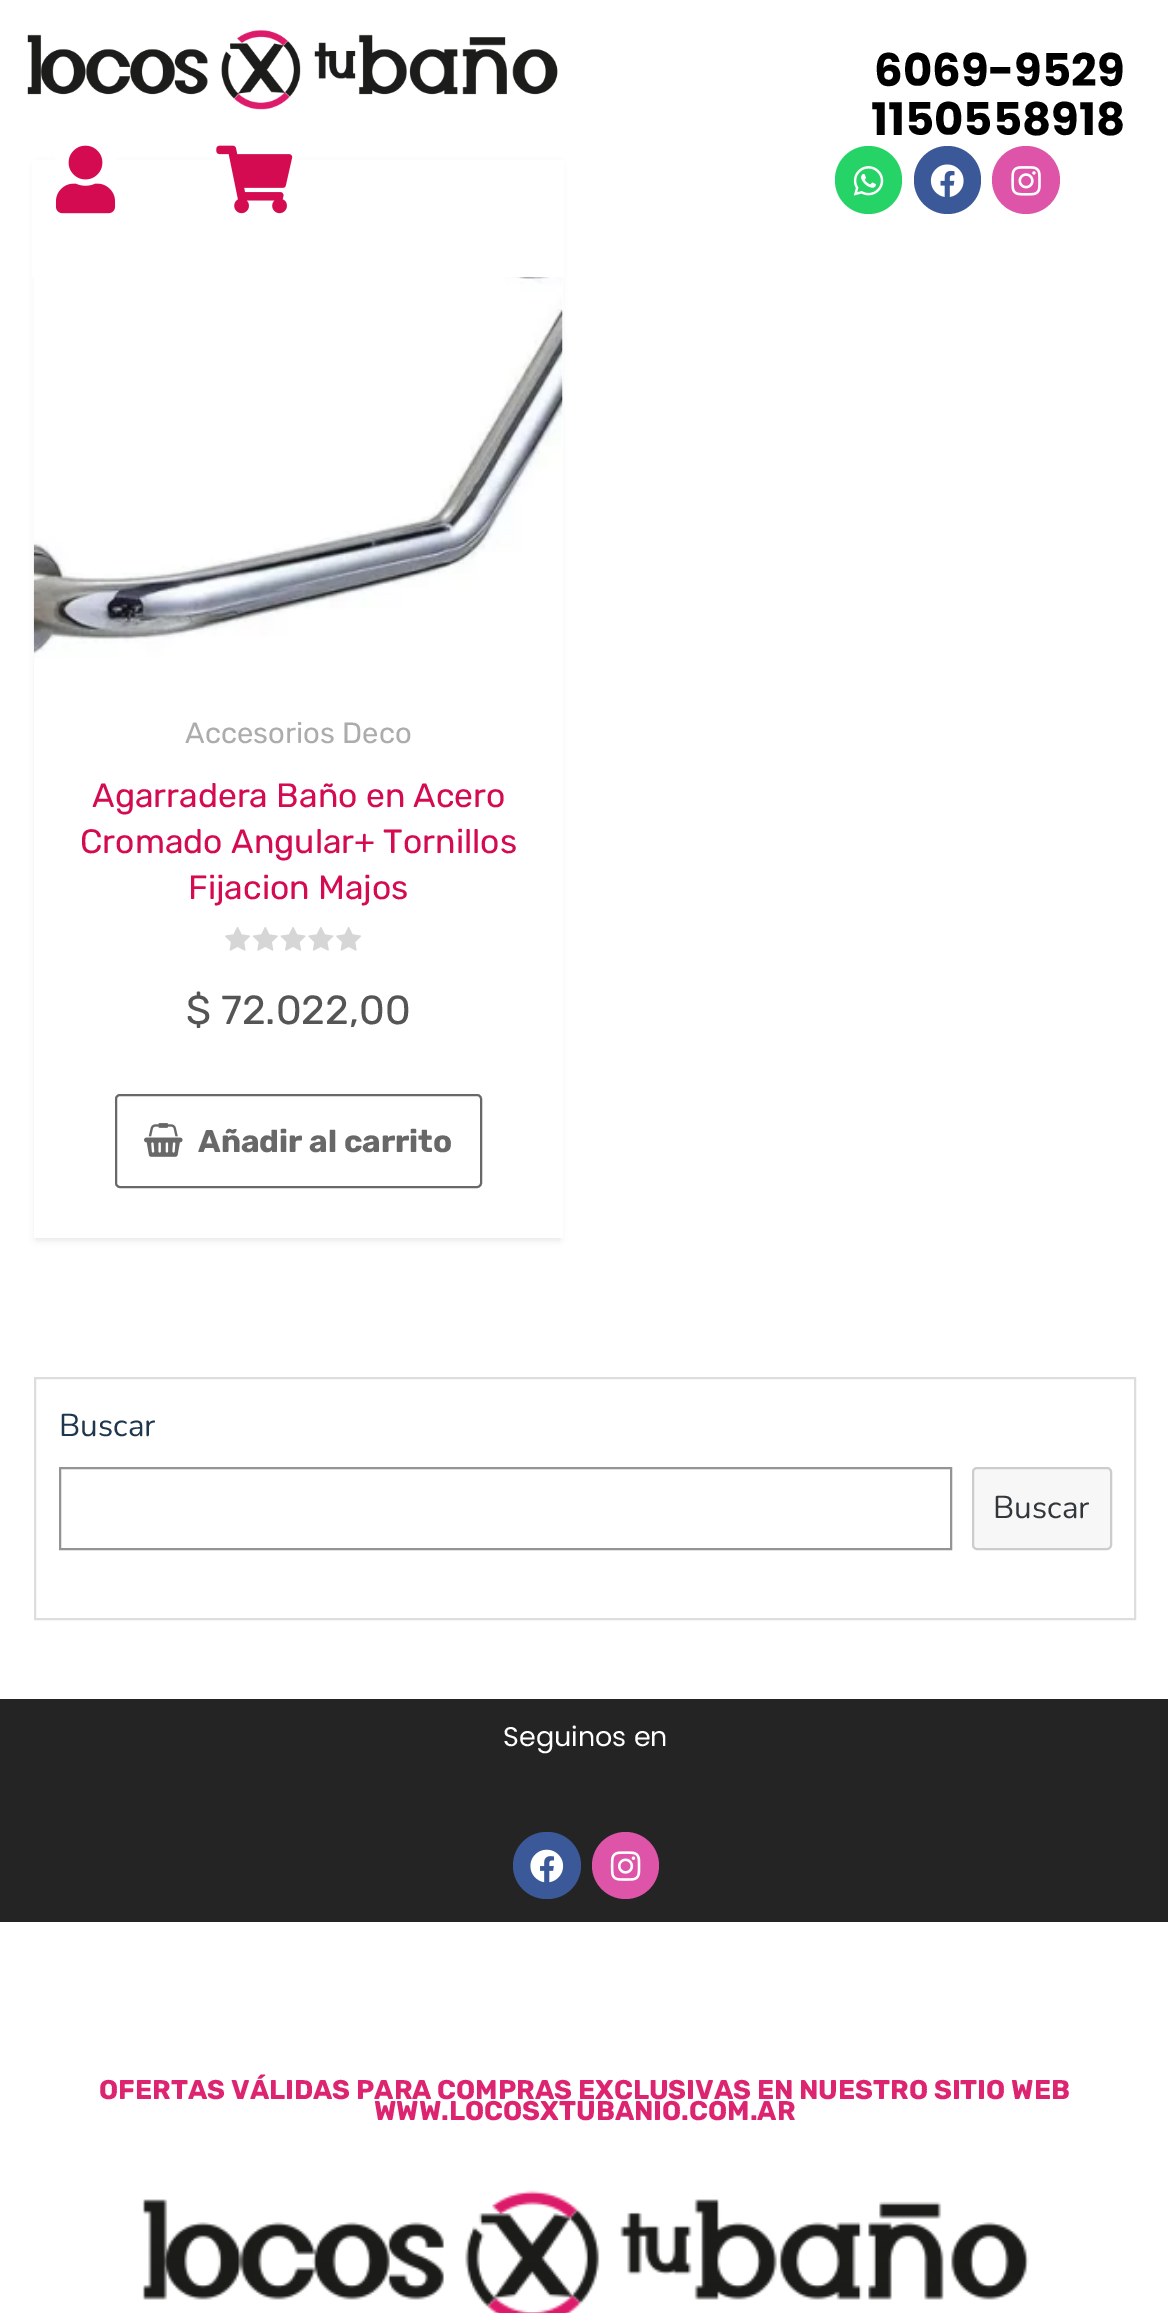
%!PS
<< /PageSize [1168 2313] /PageUsesTransparency true >> setpagedevice
/rgb { dup -16 bitshift 255 div exch dup -8 bitshift 255 and 255 div exch 255 and 255 div setrgbcolor } def
/font { [ exch dup neg 0 0 3 -1 roll 0 0 ] selectfont } def
/text { moveto show } def
/alpha { dup .setfillconstantalpha .setstrokeconstantalpha } def
/circle { newpath 0 360 arc closepath } def
/roundrect { 5 dict begin { /r /h /w /y /x } { exch def } forall
  x r add y moveto x w add y 2 copy h add r arct x w add y h add x 1 index r arct
  x y h add x y r arct x y 2 copy exch w add exch r arct closepath end } def
/shadow { 12 dict begin { /a /b /q /h /w /y /x } { exch def } forall gsave /was 0 def
  9 -2 -9 { dup b mul 4 div /e exch def 1 sub .425 mul 2.718 exch exp 1 add a .99 .min exch div /now exch def
    1 1 now sub 1 was sub div sub alpha /was now def
    w h .min e 2 mul add 0 gt { x e sub y e sub w e 2 mul add h e 2 mul add
      q e add b .6 mul add w h .min 2 div e add .min 0 .max roundrect fill } if } for grestore end } def
/picture { 5 dict begin { /h /w /y /x /name } { exch def } forall
  gsave x y translate w h scale
  w h 8 [w 0 0 h 0 0] name (r) file false 3 colorimage grestore end } def
0 .pushpdf14devicefilter
0 2313 translate 1 -1 scale
4 setmiterlimit
/s1 { /Poppins-Bold 45 font 16#000000 rgb } def
/s2 { /Rubik-Regular 29.25 font 16#ACACAC rgb } def
/s3 { /Rubik-Regular 33.75 font 16#D40B51 rgb } def
/s4 { /Rubik-Regular 40.5 font 16#555555 rgb } def
/s5 { /Rubik-Bold 31.5 font 16#686868 rgb } def
/s6 { /Nunito-Regular 31.5 font 16#1E364E rgb } def
/s7 { /Nunito-Regular 31.5 font 16#32373C rgb } def
/s8 { /Poppins-Regular 27 font 16#FFFFFF rgb } def
/s9 { /Rubik-Bold 27 font 16#DD2471 rgb } def
16#FFFFFF rgb
0 0 1168 2313 rectfill
16#000000 rgb
36 164 524 1076 0 3.5 0.1 shadow
16#FFFFFF rgb
32 160 532 117 rectfill
(pic1.raw) 27 30 531 80 picture
s1
(6069-9529) 874 86 text
(1150558918) 871 135 text
(pic2.raw) 55 145 61 69 picture
(pic3.raw) 216 145 77 69 picture
16#25D366 rgb
835 146 67 68 33.5 roundrect fill
(pic4.raw) 853 166 31 30 picture
16#3B5998 rgb
914 146 67 68 33.5 roundrect fill
(pic5.raw) 930 164 34 33 picture
16#DD54A8 rgb
1026 180 34 circle fill
(pic6.raw) 1011 166 30 30 picture
16#FFFFFF rgb
34 277 529 961 rectfill
(pic7.raw) 33 277 530 381 picture
s2
(Accesorios Deco) 185 743 text
s3
(Agarradera Baño en Acero) 92 807 text
(Cromado Angular+ Tornillos) 80 853 text
(Fijacion Majos) 188 899 text
(pic8.raw) 225 927 136 24 picture
s4
($ 72.022,00) 186 1024 text
16#686868 rgb
2 setlinewidth
116 1095 365 92 4 roundrect stroke
(pic9.raw) 144 1123 39 34 picture
s5
(Añadir al carrito) 198 1152 text
16#DDDDDD rgb
35 1378 1100 241 rectstroke
s6
(Buscar) 59 1436 text
16#949494 rgb
60 1468 891 81 rectstroke
16#F7F7F7 rgb
973 1468 138 81 4 roundrect gsave fill grestore
16#CCCCCC rgb
stroke
s7
(Buscar) 993 1518 text
16#242424 rgb
0 1699 1168 223 rectfill
s8
(Seguinos en) 503 1746 text
16#3B5998 rgb
513 1832 68 67 33.5 roundrect fill
(pic10.raw) 530 1849 34 34 picture
16#DD54A8 rgb
625.5 1865.5 33.5 circle fill
(pic11.raw) 610 1851 31 30 picture
s9
(OFERTAS VÁLIDAS PARA COMPRAS EXCLUSIVAS EN NUESTRO SITIO WEB) 99 2099 text
(WWW.LOCOSXTUBANIO.COM.AR) 374 2120 text
(pic12.raw) 142 2190 887 123 picture
.poppdf14devicefilter showpage
